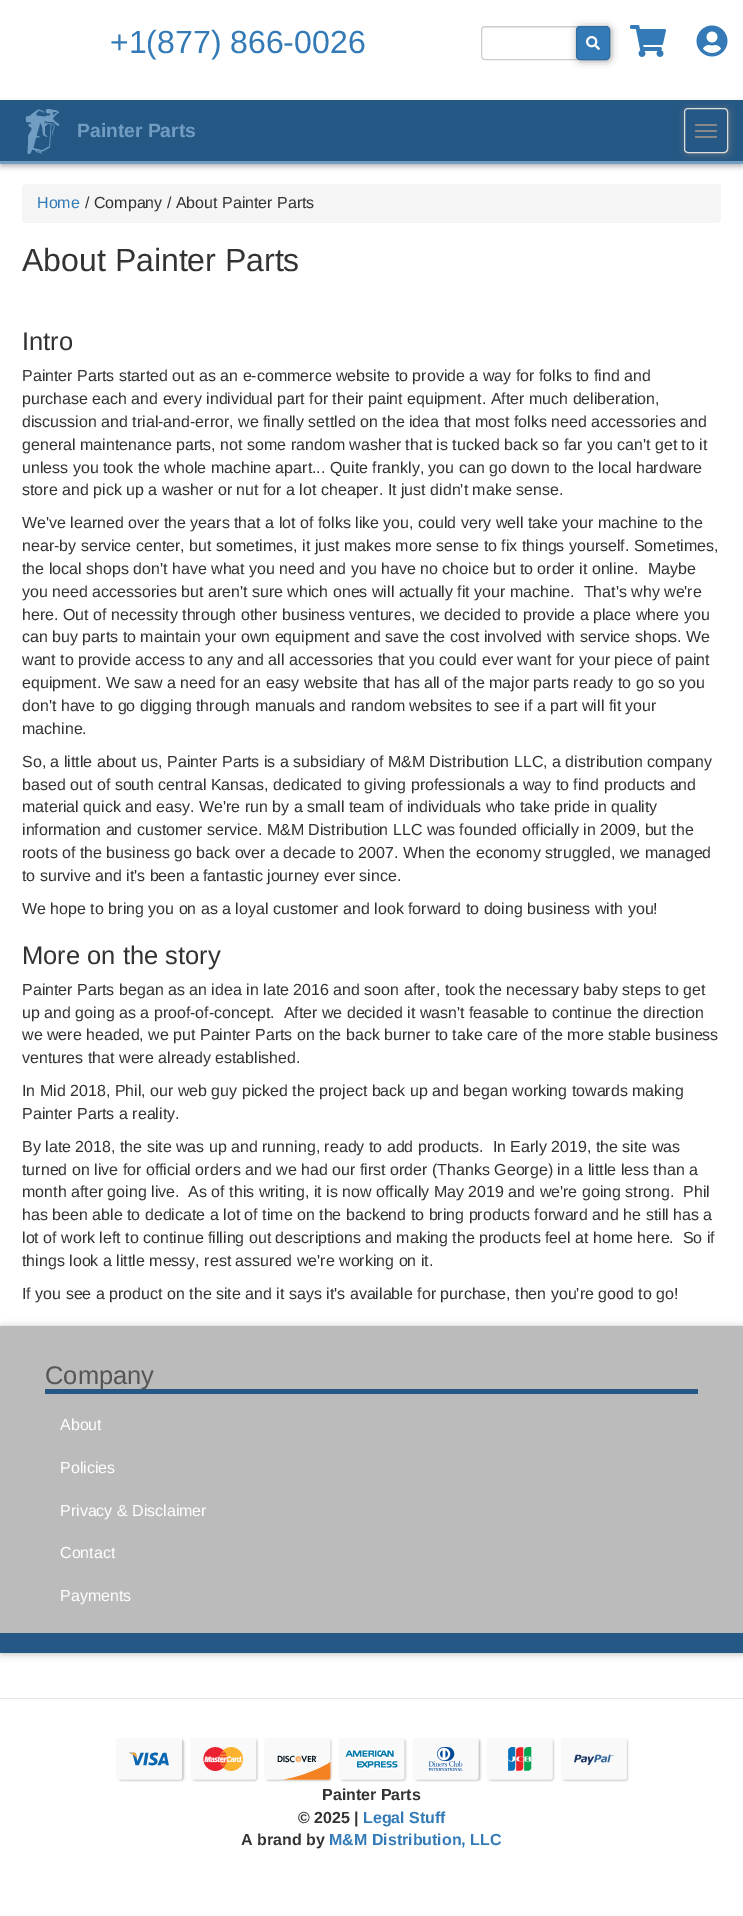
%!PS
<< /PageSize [743 1916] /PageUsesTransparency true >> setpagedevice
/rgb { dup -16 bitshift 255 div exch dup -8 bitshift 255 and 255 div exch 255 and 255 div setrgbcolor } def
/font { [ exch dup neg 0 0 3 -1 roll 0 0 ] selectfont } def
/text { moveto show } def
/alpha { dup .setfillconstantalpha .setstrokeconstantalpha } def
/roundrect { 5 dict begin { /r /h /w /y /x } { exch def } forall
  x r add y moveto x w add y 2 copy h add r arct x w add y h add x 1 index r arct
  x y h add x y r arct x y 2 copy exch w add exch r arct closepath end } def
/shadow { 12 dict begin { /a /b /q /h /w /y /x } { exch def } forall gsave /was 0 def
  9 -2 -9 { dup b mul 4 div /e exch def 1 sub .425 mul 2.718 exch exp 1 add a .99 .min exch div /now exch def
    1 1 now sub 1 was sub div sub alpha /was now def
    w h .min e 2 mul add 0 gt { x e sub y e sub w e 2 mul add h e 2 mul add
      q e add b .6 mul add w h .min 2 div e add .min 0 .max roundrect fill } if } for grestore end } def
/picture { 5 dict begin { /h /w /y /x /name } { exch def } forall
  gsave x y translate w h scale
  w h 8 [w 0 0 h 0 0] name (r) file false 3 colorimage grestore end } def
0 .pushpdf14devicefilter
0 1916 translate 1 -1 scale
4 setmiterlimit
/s1 { /LiberationSans-Regular 32 font 16#337AB7 rgb } def
/s2 { /LiberationSans-Bold 19.25 font 16#719DC3 rgb } def
/s3 { /LiberationSans-Regular 16 font 16#337AB7 rgb } def
/s4 { /LiberationSans-Regular 16 font 16#333333 rgb } def
/s5 { /LiberationSans-Regular 32 font 16#333333 rgb } def
/s6 { /LiberationSans-Regular 25.5 font 16#333333 rgb } def
/s7 { /LiberationSans-Regular 25.5 font 16#555555 rgb } def
/s8 { /LiberationSans-Regular 16 font 16#FFFFFF rgb } def
/s9 { /LiberationSans-Bold 16 font 16#333333 rgb } def
/s10 { /LiberationSans-Bold 16 font 16#337AB7 rgb } def
16#FFFFFF rgb
0 0 743 1916 rectfill
s1
(+1\(877\) 866-0026) 110 53 text
16#ECECEC rgb
485 28 moveto 577 28 lineto 579 28 580 29 580 31 curveto 580 23 565 27 562 27 curveto 500 27 lineto 497 27 482 23 482 31 curveto 482 29 483 28 485 28 curveto closepath fill
16#CCCCCC rgb
481.5 26.5 99 33 3.5 roundrect stroke
16#7A7878 rgb
578 28 32 32 3 4 1 shadow
16#337AB7 rgb
576.5 26.5 33 33 3.5 roundrect gsave fill grestore
16#2E6DA4 rgb
stroke
(pic1.raw) 586 36 14 14 picture
(pic2.raw) 630 25 36 32 picture
(pic3.raw) 696 25 32 32 picture
16#AAAAAA rgb
1 104 741 62 0 3 1 shadow
16#255885 rgb
0 100 743 61 rectfill
16#719DC3 rgb
0 161 743 3 rectfill
(pic4.raw) 25 109 35 45 picture
s2
(Painter Parts) 77 137 text
gsave
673 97 moveto 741 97 lineto 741 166 lineto 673 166 lineto closepath 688 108 moveto 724 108 lineto 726 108 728 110 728 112 curveto 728 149 lineto 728 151 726 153 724 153 curveto 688 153 lineto 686 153 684 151 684 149 curveto 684 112 lineto 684 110 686 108 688 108 curveto closepath eoclip newpath
16#7A7878 rgb
686 110 42 43 3 4 1 shadow
grestore
16#DDDDDD rgb
684.5 108.5 43 44 3.5 roundrect stroke
16#888888 rgb
695 124 22 2 1 roundrect fill
695 130 22 2 1 roundrect fill
695 136 22 2 1 roundrect fill
16#F5F5F5 rgb
22 184 699 39 4 roundrect fill
s3
(Home) 37 208 text
s4
(/ Company / About Painter Parts) 85 208 text
s5
(About Painter Parts) 22 271 text
s6
(Intro) 22 350 text
s4
(Painter Parts started out as an e-commerce website to provide a way for folks to find and) 22 381 text
(purchase each and every individual part for their paint equipment. After much deliberation,) 22 404 text
(discussion and trial-and-error, we finally settled on the idea that most folks need accessories and) 22 427 text
(general maintenance parts, not some random washer that is tucked back so far you can't get to it) 22 450 text
(unless you took the whole machine apart... Quite frankly, you can go down to the local hardware) 22 473 text
(store and pick up a washer or nut for a lot cheaper. It just didn't make sense.) 22 495 text
(We've learned over the years that a lot of folks like you, could very well take your machine to the) 22 528 text
(near-by service center, but sometimes, it just makes more sense to fix things yourself. Sometimes,) 22 551 text
(the local shops don't have what you need and you have no choice but to order it online.  Maybe) 22 574 text
(you need accessories but aren't sure which ones will actually fit your machine.  That's why we're) 22 597 text
(here. Out of necessity through other business ventures, we decided to provide a place where you) 22 620 text
(can buy parts to maintain your own equipment and save the cost involved with service shops. We) 22 642 text
(want to provide access to any and all accessories that you could ever want for your piece of paint) 22 665 text
(equipment. We saw a need for an easy website that has all of the major parts ready to go so you) 22 688 text
(don't have to go digging through manuals and random websites to see if a part will fit your) 22 711 text
(machine.) 22 734 text
(So, a little about us, Painter Parts is a subsidiary of M&M Distribution LLC, a distribution company) 22 767 text
(based out of south central Kansas, dedicated to giving professionals a way to find products and) 22 790 text
(material quick and easy. We're run by a small team of individuals who take pride in quality) 22 812 text
(information and customer service. M&M Distribution LLC was founded officially in 2009, but the) 22 835 text
(roots of the business go back over a decade to 2007. When the economy struggled, we managed) 22 858 text
(to survive and it's been a fantastic journey ever since.) 22 881 text
(We hope to bring you on as a loyal customer and look forward to doing business with you!) 22 914 text
s6
(More on the story) 22 964 text
s4
(Painter Parts began as an idea in late 2016 and soon after, took the necessary baby steps to get) 22 995 text
(up and going as a proof-of-concept.  After we decided it wasn't feasable to continue the direction) 22 1018 text
(we were headed, we put Painter Parts on the back burner to take care of the more stable business) 22 1040 text
(ventures that were already established.) 22 1063 text
(In Mid 2018, Phil, our web guy picked the project back up and began working towards making) 22 1096 text
(Painter Parts a reality.) 22 1119 text
(By late 2018, the site was up and running, ready to add products.  In Early 2019, the site was) 22 1152 text
(turned on live for official orders and we had our first order \(Thanks George\) in a little less than a) 22 1175 text
(month after going live.  As of this writing, it is now offically May 2019 and we're going strong.  Phil) 22 1197 text
(has been able to dedicate a lot of time on the backend to bring products forward and he still has a) 22 1220 text
(lot of work left to continue filling out descriptions and making the products feel at home here.  So if) 22 1243 text
(things look a little messy, rest assured we're working on it.) 22 1266 text
(If you see a product on the site and it says it's available for purchase, then you're good to go!) 22 1299 text
16#AAAAAA rgb
2 1328 741 325 0 4 1 shadow
16#BBBBBB rgb
0 1326 743 307 rectfill
16#255885 rgb
0 1633 743 20 rectfill
45 1389 653 5 rectfill
s7
(Company) 45 1384 text
s8
(About) 60 1430 text
(Policies) 60 1473 text
(Privacy & Disclaimer) 60 1516 text
(Contact) 60 1558 text
(Payments) 60 1601 text
16#E5E5E5 rgb
0 1698 743 1 rectfill
(pic5.raw) 116 1738 513 44 picture
s9
(Painter Parts) 322 1800 text
(© 2025 |) 298 1823 text
s10
(Legal Stuff) 363 1823 text
s9
(A brand by) 241 1845 text
s10
(M&M Distribution, LLC) 329 1845 text
.poppdf14devicefilter showpage
